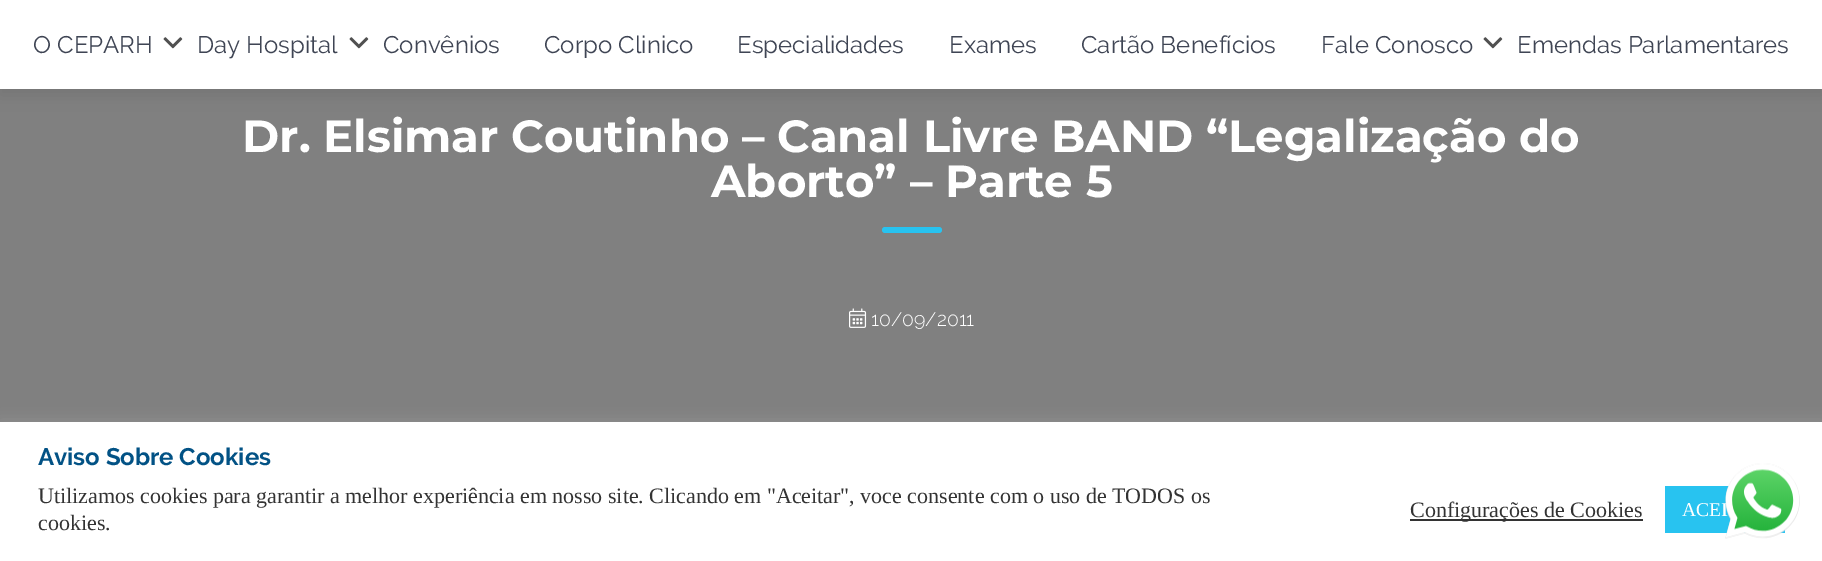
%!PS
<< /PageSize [1822 561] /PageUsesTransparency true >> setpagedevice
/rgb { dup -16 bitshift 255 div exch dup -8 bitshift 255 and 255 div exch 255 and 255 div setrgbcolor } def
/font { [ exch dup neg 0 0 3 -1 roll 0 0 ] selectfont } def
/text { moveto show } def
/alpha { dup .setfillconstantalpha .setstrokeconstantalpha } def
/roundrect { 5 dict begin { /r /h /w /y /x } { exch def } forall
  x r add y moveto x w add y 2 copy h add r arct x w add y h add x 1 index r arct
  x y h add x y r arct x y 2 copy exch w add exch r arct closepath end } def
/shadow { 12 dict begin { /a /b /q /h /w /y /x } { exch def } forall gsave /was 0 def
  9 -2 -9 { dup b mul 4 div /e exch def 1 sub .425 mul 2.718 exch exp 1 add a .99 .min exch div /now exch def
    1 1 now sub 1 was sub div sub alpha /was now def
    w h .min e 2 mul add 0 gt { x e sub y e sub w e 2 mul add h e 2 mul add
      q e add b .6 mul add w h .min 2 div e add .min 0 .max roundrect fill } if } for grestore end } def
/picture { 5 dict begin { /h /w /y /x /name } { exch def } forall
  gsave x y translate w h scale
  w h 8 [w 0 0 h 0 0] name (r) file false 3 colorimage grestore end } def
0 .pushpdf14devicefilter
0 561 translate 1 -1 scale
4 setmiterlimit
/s1 { /Raleway-Regular 24 font 16#3F4554 rgb } def
/s2 { /Montserrat-Bold 45 font 16#FFFFFF rgb } def
/s3 { /Raleway-Light 19.5 font 16#FFFFFF rgb } def
/s4 { /Raleway-Bold 24 font 16#025285 rgb } def
/s5 { /LiberationSerif-Regular 22 font 16#333333 rgb } def
/s6 { /LiberationSerif-Regular 19.5 font 16#FFFFFF rgb } def
16#808080 rgb
0 0 1822 561 rectfill
16#000000 rgb
0 6 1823 89 0 7.5 0.1 shadow
16#FFFFFF rgb
0 0 1822 89 rectfill
s1
(O CEPARH) 33 53 text
(pic1.raw) 163 37 20 12 picture
(Day Hospital) 197 53 text
(pic1.raw) 349 37 20 12 picture
(Convênios) 383 53 text
(Corpo Clinico) 544 53 text
(Especialidades) 737 53 text
(Exames) 949 53 text
(Cartão Benefícios) 1081 53 text
(Fale Conosco) 1321 53 text
(pic1.raw) 1483 37 20 12 picture
(Emendas Parlamentares) 1517 53 text
s2
(Dr. Elsimar Coutinho – Canal Livre BAND “Legalização do) 242 152 text
(Aborto” – Parte 5) 711 197 text
16#28C3F0 rgb
882 227 60 6 3 roundrect fill
(pic2.raw) 849 308 18 20 picture
s3
(10/09/2011) 871 326 text
16#ACABAB rgb
0 420 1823 140 0 7.5 0.3 shadow
16#FFFFFF rgb
0 422 1822 139 rectfill
s4
(Aviso Sobre Cookies) 38 465 text
s5
(Utilizamos cookies para garantir a melhor experiência em nosso site. Clicando em "Aceitar", voce consente com o uso de TODOS os) 38 503 text
(cookies.) 38 530 text
1410 519 233 2 rectfill
(Configurações de Cookies) 1410 517 text
16#28C3F0 rgb
1665 486 120 47 rectfill
s6
(ACEI) 1682 516 text
(pic3.raw) 1725 463 75 76 picture
.poppdf14devicefilter showpage
